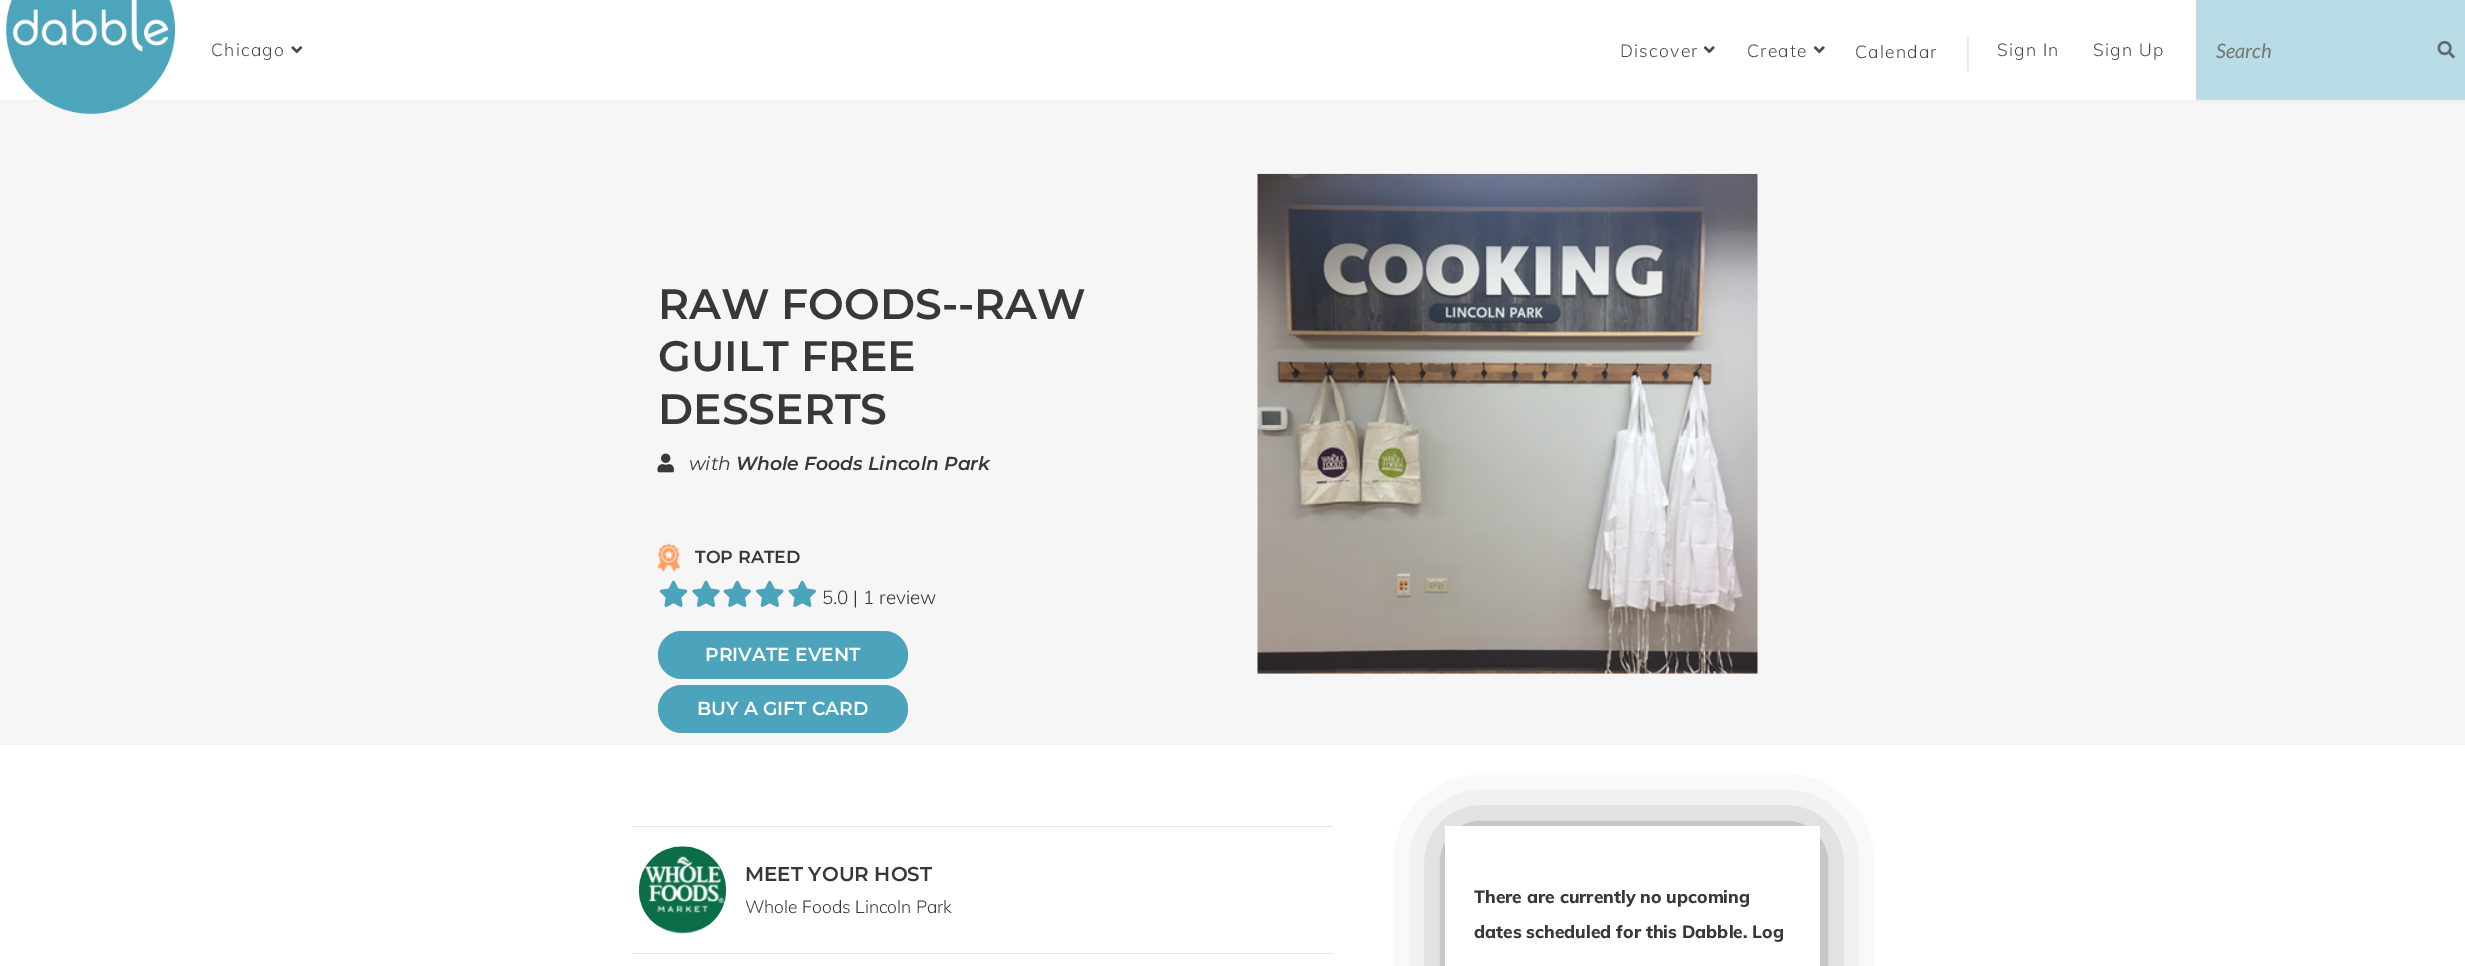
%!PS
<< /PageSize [2465 966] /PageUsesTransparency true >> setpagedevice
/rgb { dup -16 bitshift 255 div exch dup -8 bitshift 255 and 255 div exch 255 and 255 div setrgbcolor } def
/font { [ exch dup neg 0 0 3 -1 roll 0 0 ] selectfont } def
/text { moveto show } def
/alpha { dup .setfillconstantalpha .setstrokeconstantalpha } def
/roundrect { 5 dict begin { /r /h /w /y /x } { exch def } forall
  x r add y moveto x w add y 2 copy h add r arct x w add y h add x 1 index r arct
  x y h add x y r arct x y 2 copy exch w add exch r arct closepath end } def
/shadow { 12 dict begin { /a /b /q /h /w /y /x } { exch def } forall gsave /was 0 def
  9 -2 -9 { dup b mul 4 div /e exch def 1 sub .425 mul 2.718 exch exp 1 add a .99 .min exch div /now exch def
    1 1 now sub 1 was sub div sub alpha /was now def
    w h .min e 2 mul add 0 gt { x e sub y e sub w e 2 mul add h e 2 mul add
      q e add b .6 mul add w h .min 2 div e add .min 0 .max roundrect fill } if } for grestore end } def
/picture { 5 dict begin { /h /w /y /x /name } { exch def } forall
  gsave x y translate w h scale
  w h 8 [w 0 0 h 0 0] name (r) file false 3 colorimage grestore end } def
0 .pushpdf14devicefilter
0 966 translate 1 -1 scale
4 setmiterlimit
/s1 { /Lato-Italic 20 font 16#757575 rgb } def
/s2 { /Montserrat-SemiBold 42.5 font 16#383838 rgb } def
/s3 { /Montserrat-Italic 18.75 font 16#383838 rgb } def
/s4 { /Montserrat-SemiBoldItalic 18.75 font 16#383838 rgb } def
/s5 { /Montserrat-SemiBold 17.5 font 16#383838 rgb } def
/s6 { /Muli-Light 18.75 font 16#383838 rgb } def
/s7 { /Montserrat-SemiBold 18.75 font 16#FFFFFF rgb } def
/s8 { /Montserrat-SemiBold 20 font 16#383838 rgb } def
/s9 { /Muli-Light 17.5 font 16#383838 rgb } def
/s10 { /Muli-ExtraBold 17.5 font 16#383838 rgb } def
16#FFFFFF rgb
0 0 2465 966 rectfill
16#F3F2F2 rgb
0 100 2465 3 rectfill
16#F6F6F6 rgb
0 103 2465 642 rectfill
(pic1.raw) 6 0 169 114 picture
/Muli-Light 17.5 font
16#4B4A4A rgb
211 56 moveto 1.25 0 (Chicago) ashow
(pic2.raw) 291 46 12 8 picture
1620 57 moveto 1.25 0 (Discover) ashow
(pic3.raw) 1703 46 12 8 picture
1747 57 moveto 1.25 0 (Create) ashow
(pic3.raw) 1813 46 12 8 picture
1855 58 moveto 1.25 0 (Calendar) ashow
/Muli-Light 38 font
16#E9E9E9 rgb
1963 64 moveto 1.25 0 (|) ashow
/Muli-Light 17.5 font
16#4B4A4A rgb
1997 56 moveto 1.25 0 (Sign In) ashow
2093 56 moveto 1.25 0 (Sign Up) ashow
16#BADCE6 rgb
2196 0 269 100 rectfill
s1
(Search) 2216 58 text
(pic4.raw) 2437 40 18 19 picture
s2
(RAW FOODS--RAW) 658 319 text
(GUILT FREE) 658 371 text
(DESSERTS) 658 424 text
(pic5.raw) 657 453 17 20 picture
s3
(with) 689 470 text
s4
(Whole Foods Lincoln Park) 736 470 text
(pic6.raw) 657 543 23 29 picture
s5
(TOP RATED) 695 563 text
(pic7.raw) 659 580 29 27 picture
(pic8.raw) 692 580 28 27 picture
(pic9.raw) 723 580 28 27 picture
(pic10.raw) 756 580 28 27 picture
(pic9.raw) 788 580 28 27 picture
s6
(5.0 | 1 review) 822 604 text
16#4BA4BC rgb
658 631 250 48 24 roundrect fill
s7
(PRIVATE EVENT) 705 661 text
16#4BA4BC rgb
658 685 250 48 24 roundrect fill
s7
(BUY A GIFT CARD) 697 715 text
(pic11.raw) 1257 173 501 501 picture
16#E4E4E4 rgb
633 826 700 1 rectfill
633 953 700 1 rectfill
(pic12.raw) 638 846 89 88 picture
s8
(MEET YOUR HOST) 745 881 text
s9
(Whole Foods Lincoln Park) 745 913 text
16#000000 rgb
1463 844 342 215 0 31 0.73 shadow
16#FFFFFF rgb
1445 826 375 140 rectfill
s10
(There are currently no upcoming) 1474 903 text
(dates scheduled for this Dabble. Log) 1474 938 text
.poppdf14devicefilter showpage
